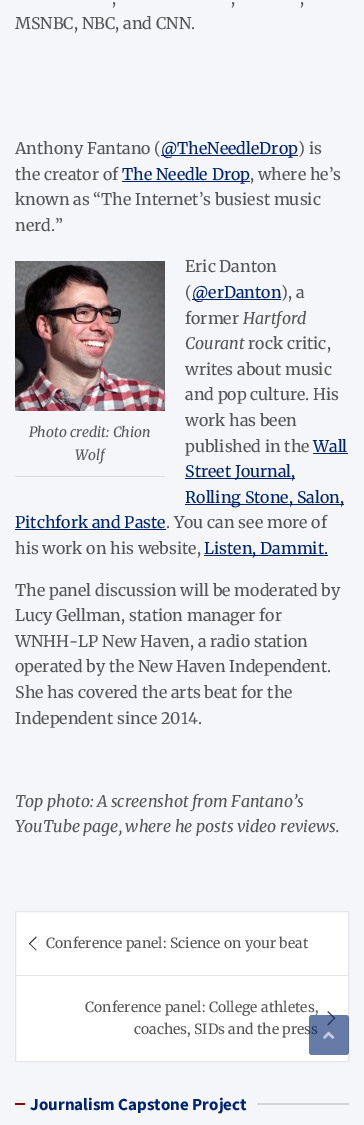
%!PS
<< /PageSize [364 1125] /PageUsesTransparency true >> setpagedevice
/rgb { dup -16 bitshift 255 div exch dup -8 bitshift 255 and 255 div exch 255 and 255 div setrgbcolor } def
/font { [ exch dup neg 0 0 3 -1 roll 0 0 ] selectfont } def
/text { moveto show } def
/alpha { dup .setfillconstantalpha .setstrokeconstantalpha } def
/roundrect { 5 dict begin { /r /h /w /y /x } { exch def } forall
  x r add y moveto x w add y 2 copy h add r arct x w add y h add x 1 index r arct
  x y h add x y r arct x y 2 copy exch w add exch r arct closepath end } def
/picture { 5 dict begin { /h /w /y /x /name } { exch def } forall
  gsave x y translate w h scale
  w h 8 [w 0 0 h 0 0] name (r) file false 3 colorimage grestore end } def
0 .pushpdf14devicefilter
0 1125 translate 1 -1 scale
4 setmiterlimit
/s1 { /Merriweather-Regular 16 font 16#555555 rgb } def
/s2 { /Merriweather-Regular 16 font 16#00236E rgb } def
/s3 { /Merriweather-Italic 16 font 16#555555 rgb } def
/s4 { /Merriweather-Italic 14 font 16#555555 rgb } def
/s5 { /Merriweather-Regular 14 font 16#555555 rgb } def
/s6 { /SourceSansPro-Bold 17 font 16#00236E rgb } def
16#F4F6F9 rgb
0 0 364 1125 rectfill
s1
(,) 112 4 text
(,) 231 4 text
(,) 300 4 text
(MSNBC, NBC, and CNN.) 15 29 text
(Anthony Fantano \() 15 154 text
16#00236E rgb
161 155 137 1 rectfill
(@TheNeedleDrop) 161 154 text
s1
(\) is) 298 154 text
(the creator of) 15 180 text
16#00236E rgb
122 181 128 1 rectfill
(The Needle Drop) 122 180 text
s1
(, where he’s) 250 180 text
(known as “The Internet’s busiest music) 15 205 text
(nerd.”) 15 231 text
(Eric Danton) 185 272 text
(\() 185 298 text
16#00236E rgb
192 299 89 1 rectfill
(@erDanton) 192 298 text
s1
(\), a) 281 298 text
(former) 185 324 text
s3
(Hartford) 243 324 text
(Courant) 185 349 text
s1
(rock critic,) 248 349 text
(writes about music) 185 375 text
(and pop culture. His) 185 400 text
(work has been) 185 426 text
(published in the) 185 452 text
s2
(Wall) 313 452 text
313 453 35 1 rectfill
185 478 110 1 rectfill
(Street Journal,) 185 477 text
185 504 159 1 rectfill
(Rolling Stone, Salon,) 185 503 text
(Pitchfork and Paste) 15 528 text
15 529 151 1 rectfill
s1
(. You can see more of) 166 528 text
(his work on his website,) 15 554 text
16#00236E rgb
204 555 124 1 rectfill
(Listen, Dammit.) 204 554 text
(pic1.raw) 15 261 150 150 picture
16#DCDDE0 rgb
15 476 150 1 rectfill
s4
(Photo credit: Chion) 29 437 text
(Wolf) 75 460 text
s1
(The panel discussion will be moderated by) 15 596 text
(Lucy Gellman, station manager for) 15 621 text
(WNHH-LP New Haven, a radio station) 15 647 text
(operated by the New Haven Independent.) 15 672 text
(She has covered the arts beat for the) 15 698 text
(Independent since 2014.) 15 724 text
s3
(Top photo: A screenshot from Fantano’s) 15 807 text
(YouTube page, where he posts video reviews.) 15 832 text
16#FFFFFF rgb
15.5 911.5 moveto 348.5 911.5 lineto 348.5 1061.5 lineto 15.5 1061.5 lineto closepath gsave fill grestore
16#E6E6E6 rgb
stroke
16#333333 rgb
29.5 943 moveto 36.5 950 lineto 36 950.5 lineto 29 943.5 lineto closepath fill
36 936.5 moveto 36.5 937.5 lineto 29.5 944.5 lineto 29 943.5 lineto closepath fill
s5
(Conference panel: Science on your beat) 46 948 text
16#E6E6E6 rgb
16 975 332 1 rectfill
s5
(Conference panel: College athletes,) 85 1012 text
16#333333 rgb
328 1011 moveto 335 1018 lineto 334.5 1019 lineto 327.5 1012 lineto closepath fill
334.5 1017.5 moveto 335 1018 lineto 328 1025.5 lineto 327.5 1024.5 lineto closepath fill
s5
(coaches, SIDs and the press) 134 1034 text
0.6 alpha
16#00236E rgb
309 1015 40 40 3 roundrect fill
1 alpha
(pic2.raw) 323 1031 12 8 picture
16#950202 rgb
15 1103 10 2 rectfill
s6
(Journalism Capstone Project) 30 1110 text
16#D4D6D8 rgb
257 1103 92 2 rectfill
.poppdf14devicefilter showpage
